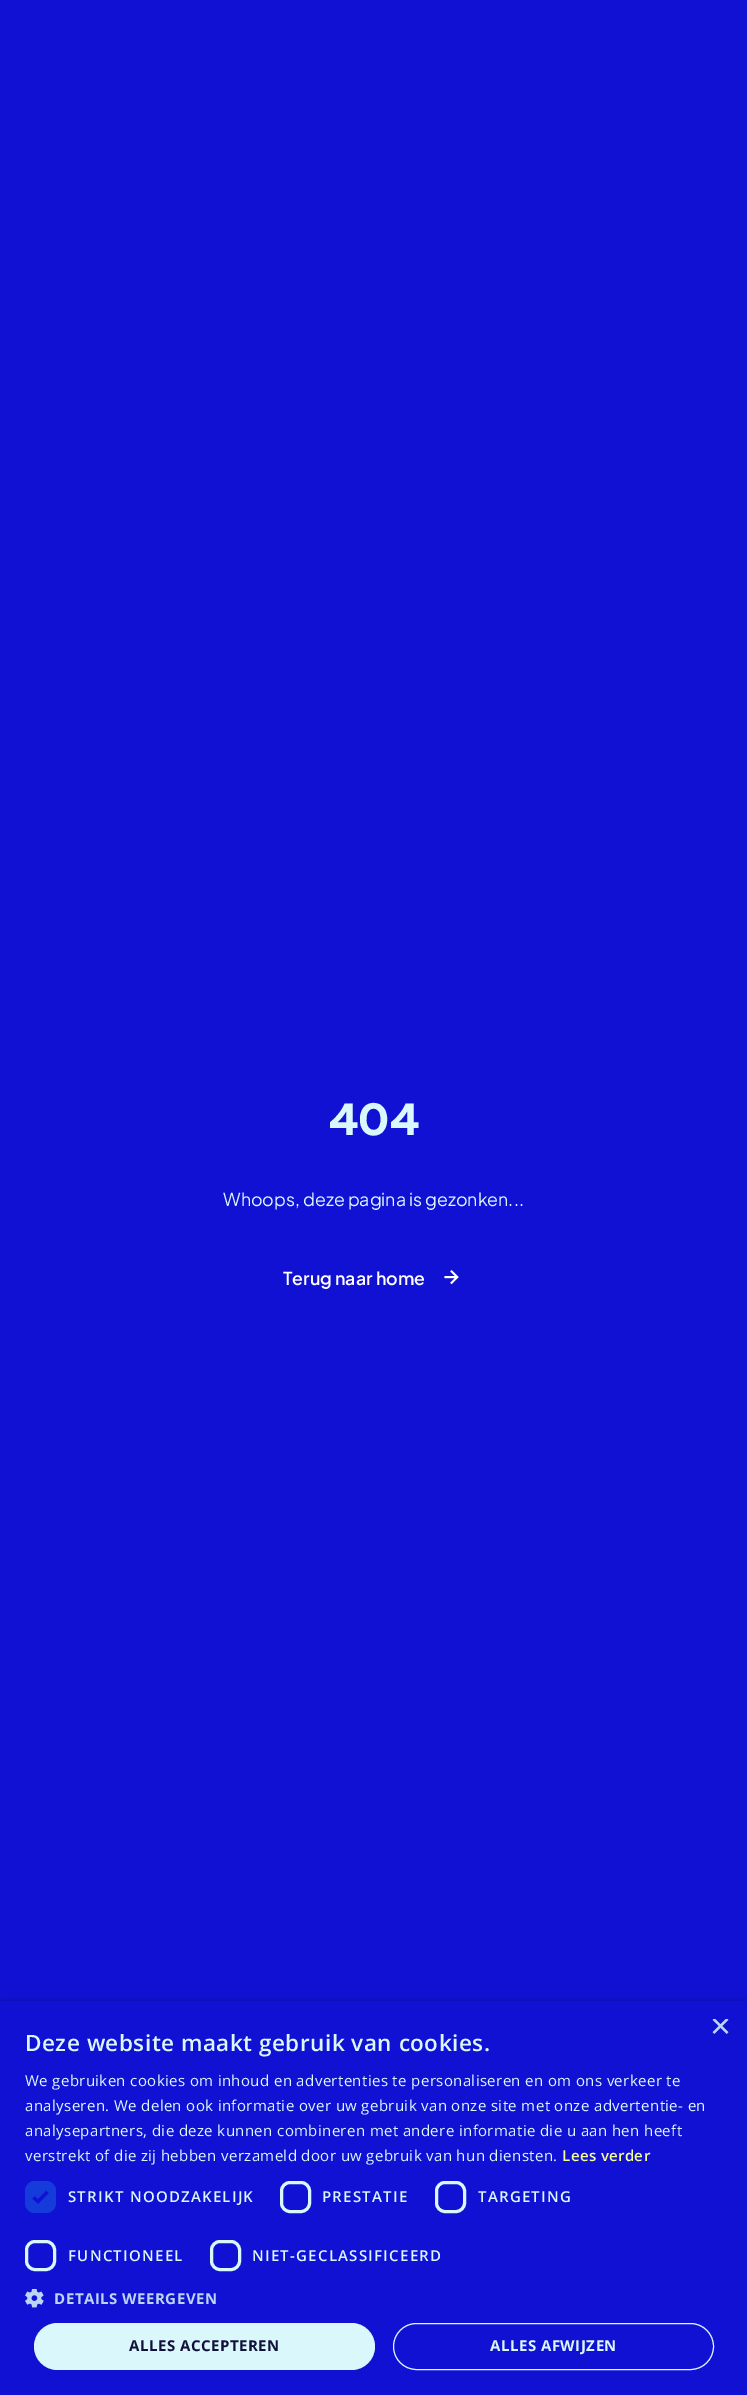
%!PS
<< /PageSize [747 2395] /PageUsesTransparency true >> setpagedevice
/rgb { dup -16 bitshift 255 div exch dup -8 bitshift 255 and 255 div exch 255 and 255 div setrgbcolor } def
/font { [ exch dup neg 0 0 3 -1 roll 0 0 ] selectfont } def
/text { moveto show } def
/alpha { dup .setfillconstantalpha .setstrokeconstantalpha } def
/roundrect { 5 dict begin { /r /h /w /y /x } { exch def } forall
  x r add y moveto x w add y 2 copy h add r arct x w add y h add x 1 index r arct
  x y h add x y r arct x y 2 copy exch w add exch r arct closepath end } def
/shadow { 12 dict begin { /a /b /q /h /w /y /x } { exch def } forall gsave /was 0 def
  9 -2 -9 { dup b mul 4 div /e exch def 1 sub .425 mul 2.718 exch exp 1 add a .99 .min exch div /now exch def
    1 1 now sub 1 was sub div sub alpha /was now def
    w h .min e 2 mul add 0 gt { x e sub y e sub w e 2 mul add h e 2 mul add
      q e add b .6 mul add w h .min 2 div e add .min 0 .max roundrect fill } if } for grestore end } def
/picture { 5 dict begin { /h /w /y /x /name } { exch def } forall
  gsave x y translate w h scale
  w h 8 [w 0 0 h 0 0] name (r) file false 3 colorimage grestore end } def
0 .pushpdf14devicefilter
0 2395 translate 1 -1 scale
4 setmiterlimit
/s1 { /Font-Bold 45 font 16#DAF7FB rgb } def
/s2 { /PlusJakartaSans-Regular 17.8 font 16#DAF7FB rgb } def
/s3 { /PlusJakartaSans-SemiBold 17.8 font 16#FFFFFF rgb } def
/s4 { /LiberationSans-Regular 36 font 16#BCD5F5 rgb } def
16#1111D4 rgb
0 0 747 2395 rectfill
s1
(404) 329 1135 text
s2
(Whoops, deze pagina is gezonken...) 223 1206 text
s3
(Terug naar home) 283 1285 text
(pic1.raw) 444 1270 15 15 picture
16#000000 rgb
1 2004 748 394 0 5 0.35 shadow
16#1111D4 rgb
0 2001 747 394 rectfill
gsave
710 2019 19 19 rectclip
s4
(×) 710 2038 text
grestore
/OpenSans-SemiBold 22.5 font
16#DAF7FB rgb
25 2051 moveto 0.5 0 (Deze website maakt gebruik van cookies.) ashow
/OpenSans-Regular 15 font
25 2086 moveto 0.38 0 (We gebruiken cookies om inhoud en advertenties te personaliseren en om ons verkeer te) ashow
25 2111 moveto 0.38 0 (analyseren. We delen ook informatie over uw gebruik van onze site met onze advertentie- en) ashow
25 2136 moveto 0.38 0 (analysepartners, die deze kunnen combineren met andere informatie die u aan hen heeft) ashow
25 2161 moveto 0.38 0 (verstrekt of die zij hebben verzameld door uw gebruik van hun diensten.) ashow
/OpenSans-SemiBold 15 font
16#F3FF99 rgb
562 2161 moveto 0.38 0 (Lees verder) ashow
16#153CDB rgb
25 2181 31 32 10 roundrect fill
16#1111D4 rgb
3.3 setlinewidth
33.5 2197.5 moveto 38 2201.5 lineto 47.5 2192 lineto stroke
16#DAF7FB rgb
68 2202 moveto 1.25 0 (STRIKT NOODZAKELIJK) ashow
3 setlinewidth
281.5 2182.5 28 29 8.5 roundrect stroke
322 2202 moveto 1.25 0 (PRESTATIE) ashow
436.5 2182.5 28 29 8.5 roundrect stroke
478 2202 moveto 1.25 0 (TARGETING) ashow
26.5 2241.5 28 28 8.5 roundrect stroke
68 2261 moveto 1.25 0 (FUNCTIONEEL) ashow
211.5 2241.5 28 28 8.5 roundrect stroke
252 2261 moveto 1.25 0 (NIET-GECLASSIFICEERD) ashow
(pic2.raw) 25 2289 19 19 picture
/OpenSans-Bold 15 font
16#BCD5F5 rgb
54 2304 moveto 0.5 0 (DETAILS WEERGEVEN) ashow
16#DAF7FB rgb
34 2323 341 47 23.5 roundrect fill
16#11113A rgb
129 2351 moveto 0.5 0 (ALLES ACCEPTEREN) ashow
16#DAF7FB rgb
1 setlinewidth
393.5 2323.5 320 46 23 roundrect stroke
490 2351 moveto 0.5 0 (ALLES AFWIJZEN) ashow
.poppdf14devicefilter showpage
